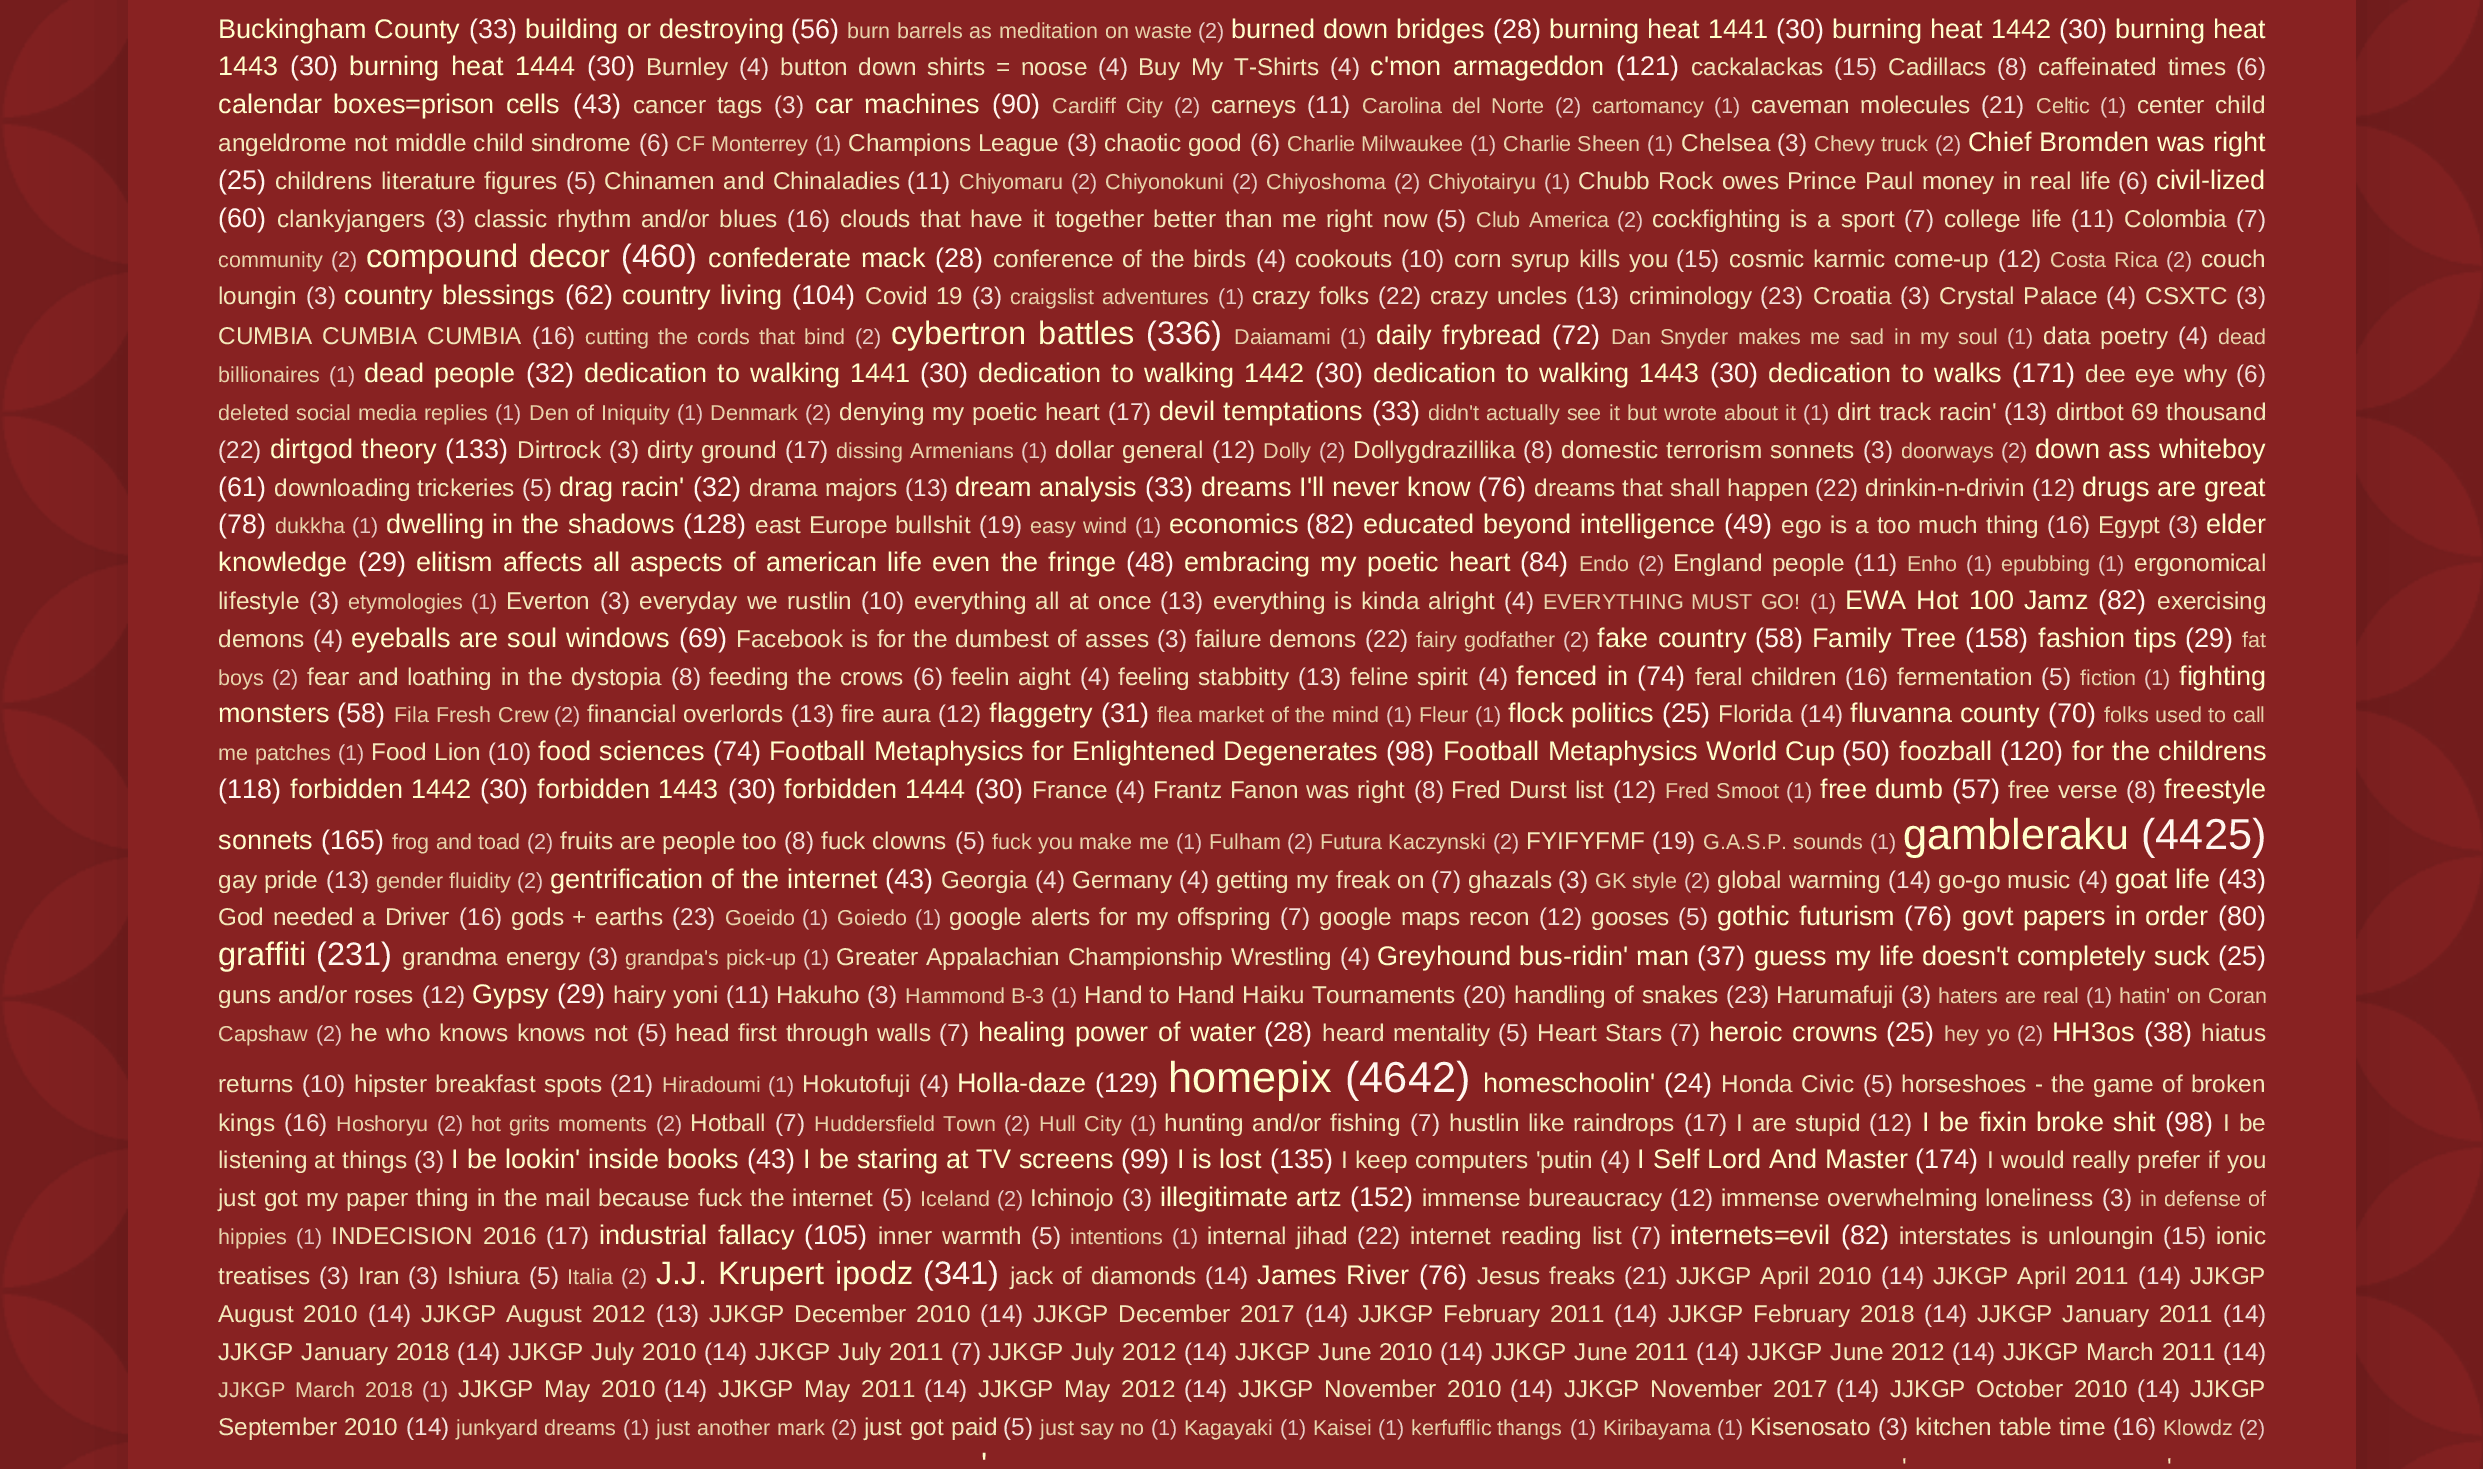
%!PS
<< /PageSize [2483 1469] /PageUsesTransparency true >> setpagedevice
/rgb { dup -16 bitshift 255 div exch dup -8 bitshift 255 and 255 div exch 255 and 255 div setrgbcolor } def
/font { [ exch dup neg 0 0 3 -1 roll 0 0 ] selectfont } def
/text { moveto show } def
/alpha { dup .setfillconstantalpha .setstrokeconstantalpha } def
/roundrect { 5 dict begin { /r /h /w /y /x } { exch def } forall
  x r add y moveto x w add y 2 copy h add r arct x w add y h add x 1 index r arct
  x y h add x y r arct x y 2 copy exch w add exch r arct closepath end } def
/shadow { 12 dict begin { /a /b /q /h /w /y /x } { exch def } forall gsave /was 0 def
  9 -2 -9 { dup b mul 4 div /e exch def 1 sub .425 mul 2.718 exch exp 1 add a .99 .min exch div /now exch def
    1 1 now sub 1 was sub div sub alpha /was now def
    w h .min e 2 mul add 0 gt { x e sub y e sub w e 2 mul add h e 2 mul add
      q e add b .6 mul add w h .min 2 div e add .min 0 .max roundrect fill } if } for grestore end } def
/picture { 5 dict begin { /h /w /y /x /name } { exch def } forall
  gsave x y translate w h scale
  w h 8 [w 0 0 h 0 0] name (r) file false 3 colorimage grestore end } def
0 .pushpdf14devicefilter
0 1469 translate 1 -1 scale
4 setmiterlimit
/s1 { /LiberationSans-Regular 27 font 16#FFFFCC rgb } def
/s2 { /LiberationSans-Regular 27 font 16#FFF5EE rgb } def
/s3 { /LiberationSans-Regular 21.6 font 16#E7CBC5 rgb } def
/s4 { /LiberationSans-Regular 24.3 font 16#F3E9BB rgb } def
/s5 { /LiberationSans-Regular 24.3 font 16#F3E0DA rgb } def
/s6 { /LiberationSans-Regular 21.6 font 16#E7D3AA rgb } def
/s7 { /LiberationSans-Regular 32.5 font 16#FFF5EE rgb } def
/s8 { /LiberationSans-Regular 43.25 font 16#FFFFCC rgb } def
/s9 { /LiberationSans-Regular 43.25 font 16#FFF5EE rgb } def
/s10 { /LiberationSans-Regular 32.5 font 16#FFFFCC rgb } def
16#882222 rgb
0 0 2483 1469 rectfill
(pic1.raw) 0 0 2483 1469 picture
16#000000 rgb
128 -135 2228 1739 0 45 0.15 shadow
16#882222 rgb
128 0 2228 1469 rectfill
s1
(Buckingham County) 218 38 text
s2
(\(33\)) 469 38 text
16#FFFFCC rgb
525 38 moveto 1 0 32 (building or destroying) widthshow
s2
(\(56\)) 791 38 text
/LiberationSans-Regular 21.6 font
16#E7D3AA rgb
847 38 moveto 0.5 0 32 (burn barrels as meditation on waste) widthshow
s3
(\(2\)) 1198 38 text
/LiberationSans-Regular 27 font
16#FFFFCC rgb
1231 38 moveto 0.5 0 32 (burned down bridges) widthshow
s2
(\(28\)) 1493 38 text
16#FFFFCC rgb
1549 38 moveto 0.5 0 32 (burning heat 1441) widthshow
s2
(\(30\)) 1776 38 text
16#FFFFCC rgb
1832 38 moveto 0.5 0 32 (burning heat 1442) widthshow
s2
(\(30\)) 2059 38 text
s1
(burning heat) 2115 38 text
(1443) 218 75 text
s2
(\(30\)) 290 75 text
16#FFFFCC rgb
349 75 moveto 4 0 32 (burning heat 1444) widthshow
s2
(\(30\)) 587 75 text
s4
(Burnley) 646 75 text
s5
(\(4\)) 739 75 text
16#F3E9BB rgb
780 75 moveto 4 0 32 (button down shirts = noose) widthshow
s5
(\(4\)) 1098 75 text
16#F3E9BB rgb
1138 75 moveto 4 0 32 (Buy My T-Shirts) widthshow
s5
(\(4\)) 1330 75 text
/LiberationSans-Regular 27 font
16#FFFFCC rgb
1370 75 moveto 4 0 32 (c'mon armageddon) widthshow
s2
(\(121\)) 1616 75 text
s4
(cackalackas) 1691 75 text
s5
(\(15\)) 1834 75 text
s4
(Cadillacs) 1888 75 text
s5
(\(8\)) 1997 75 text
16#F3E9BB rgb
2038 75 moveto 4 0 32 (caffeinated times) widthshow
s5
(\(6\)) 2236 75 text
/LiberationSans-Regular 27 font
16#FFFFCC rgb
218 113 moveto 4 0 32 (calendar boxes=prison cells) widthshow
s2
(\(43\)) 573 113 text
/LiberationSans-Regular 24.3 font
16#F3E9BB rgb
633 113 moveto 4 0 32 (cancer tags) widthshow
s5
(\(3\)) 774 113 text
/LiberationSans-Regular 27 font
16#FFFFCC rgb
815 113 moveto 4 0 32 (car machines) widthshow
s2
(\(90\)) 992 113 text
/LiberationSans-Regular 21.6 font
16#E7D3AA rgb
1052 113 moveto 4 0 32 (Cardiff City) widthshow
s3
(\(2\)) 1174 113 text
s4
(carneys) 1211 113 text
s5
(\(11\)) 1307 113 text
/LiberationSans-Regular 21.6 font
16#E7D3AA rgb
1362 113 moveto 4 0 32 (Carolina del Norte) widthshow
s3
(\(2\)) 1555 113 text
s6
(cartomancy) 1592 113 text
s3
(\(1\)) 1714 113 text
/LiberationSans-Regular 24.3 font
16#F3E9BB rgb
1751 113 moveto 4 0 32 (caveman molecules) widthshow
s5
(\(21\)) 1981 113 text
s6
(Celtic) 2036 113 text
s3
(\(1\)) 2100 113 text
/LiberationSans-Regular 24.3 font
16#F3E9BB rgb
2137 113 moveto 4 0 32 (center child) widthshow
218 151 moveto 0.5 0 32 (angeldrome not middle child sindrome) widthshow
s5
(\(6\)) 639 151 text
s6
(CF Monterrey) 676 151 text
s3
(\(1\)) 815 151 text
s4
(Champions League) 848 151 text
s5
(\(3\)) 1067 151 text
s4
(chaotic good) 1104 151 text
s5
(\(6\)) 1250 151 text
s6
(Charlie Milwaukee) 1287 151 text
s3
(\(1\)) 1470 151 text
s6
(Charlie Sheen) 1503 151 text
s3
(\(1\)) 1647 151 text
s4
(Chelsea) 1681 151 text
s5
(\(3\)) 1777 151 text
s6
(Chevy truck) 1814 151 text
s3
(\(2\)) 1935 151 text
/LiberationSans-Regular 27 font
16#FFFFCC rgb
1968 151 moveto 0.5 0 32 (Chief Bromden was right) widthshow
s2
(\(25\)) 218 189 text
/LiberationSans-Regular 24.3 font
16#F3E9BB rgb
275 189 moveto 2 0 32 (childrens literature figures) widthshow
s5
(\(5\)) 566 189 text
16#F3E9BB rgb
604 189 moveto 2 0 32 (Chinamen and Chinaladies) widthshow
s5
(\(11\)) 907 189 text
s6
(Chiyomaru) 959 189 text
s3
(\(2\)) 1071 189 text
s6
(Chiyonokuni) 1105 189 text
s3
(\(2\)) 1232 189 text
s6
(Chiyoshoma) 1266 189 text
s3
(\(2\)) 1394 189 text
s6
(Chiyotairyu) 1428 189 text
s3
(\(1\)) 1544 189 text
/LiberationSans-Regular 24.3 font
16#F3E9BB rgb
1578 189 moveto 1.75 0 32 (Chubb Rock owes Prince Paul money in real life) widthshow
s5
(\(6\)) 2118 189 text
s1
(civil-lized) 2156 189 text
s2
(\(60\)) 218 227 text
s4
(clankyjangers) 277 227 text
s5
(\(3\)) 435 227 text
16#F3E9BB rgb
474 227 moveto 3 0 32 (classic rhythm and/or blues) widthshow
s5
(\(16\)) 787 227 text
16#F3E9BB rgb
840 227 moveto 3 0 32 (clouds that have it together better than me right now) widthshow
s5
(\(5\)) 1436 227 text
/LiberationSans-Regular 21.6 font
16#E7D3AA rgb
1476 227 moveto 3 0 32 (Club America) widthshow
s3
(\(2\)) 1617 227 text
/LiberationSans-Regular 24.3 font
16#F3E9BB rgb
1652 227 moveto 3 0 32 (cockfighting is a sport) widthshow
s5
(\(7\)) 1904 227 text
16#F3E9BB rgb
1944 227 moveto 3 0 32 (college life) widthshow
s5
(\(11\)) 2071 227 text
s4
(Colombia) 2124 227 text
s5
(\(7\)) 2236 227 text
s6
(community) 218 267 text
s3
(\(2\)) 331 267 text
/LiberationSans-Regular 32.5 font
16#FFFFCC rgb
366 267 moveto 2 0 32 (compound decor) widthshow
s7
(\(460\)) 621 267 text
/LiberationSans-Regular 27 font
16#FFFFCC rgb
708 267 moveto 2.5 0 32 (confederate mack) widthshow
s2
(\(28\)) 935 267 text
/LiberationSans-Regular 24.3 font
16#F3E9BB rgb
993 267 moveto 2 0 32 (conference of the birds) widthshow
s5
(\(4\)) 1256 267 text
s4
(cookouts) 1295 267 text
s5
(\(10\)) 1401 267 text
16#F3E9BB rgb
1454 267 moveto 2.5 0 32 (corn syrup kills you) widthshow
s5
(\(15\)) 1676 267 text
16#F3E9BB rgb
1729 267 moveto 2 0 32 (cosmic karmic come-up) widthshow
s5
(\(12\)) 1998 267 text
/LiberationSans-Regular 21.6 font
16#E7D3AA rgb
2050 267 moveto 2 0 32 (Costa Rica) widthshow
s3
(\(2\)) 2166 267 text
s4
(couch) 2201 267 text
(loungin) 218 304 text
s5
(\(3\)) 306 304 text
/LiberationSans-Regular 27 font
16#FFFFCC rgb
344 304 moveto 2 0 32 (country blessings) widthshow
s2
(\(62\)) 565 304 text
16#FFFFCC rgb
622 304 moveto 2 0 32 (country living) widthshow
s2
(\(104\)) 792 304 text
/LiberationSans-Regular 24.3 font
16#F3E9BB rgb
865 304 moveto 2 0 32 (Covid 19) widthshow
s5
(\(3\)) 972 304 text
/LiberationSans-Regular 21.6 font
16#E7D3AA rgb
1010 304 moveto 2 0 32 (craigslist adventures) widthshow
s3
(\(1\)) 1218 304 text
/LiberationSans-Regular 24.3 font
16#F3E9BB rgb
1252 304 moveto 2 0 32 (crazy folks) widthshow
s5
(\(22\)) 1378 304 text
16#F3E9BB rgb
1430 304 moveto 2 0 32 (crazy uncles) widthshow
s5
(\(13\)) 1576 304 text
s4
(criminology) 1629 304 text
s5
(\(23\)) 1760 304 text
s4
(Croatia) 1813 304 text
s5
(\(3\)) 1900 304 text
16#F3E9BB rgb
1939 304 moveto 2 0 32 (Crystal Palace) widthshow
s5
(\(4\)) 2106 304 text
s4
(CSXTC) 2145 304 text
s5
(\(3\)) 2236 304 text
16#F3E9BB rgb
218 344 moveto 3.25 0 32 (CUMBIA CUMBIA CUMBIA) widthshow
s5
(\(16\)) 532 344 text
/LiberationSans-Regular 21.6 font
16#E7D3AA rgb
585 344 moveto 3.25 0 32 (cutting the cords that bind) widthshow
s3
(\(2\)) 855 344 text
/LiberationSans-Regular 32.5 font
16#FFFFCC rgb
891 344 moveto 3 0 32 (cybertron battles) widthshow
s7
(\(336\)) 1146 344 text
s6
(Daiamami) 1234 344 text
s3
(\(1\)) 1340 344 text
/LiberationSans-Regular 27 font
16#FFFFCC rgb
1376 344 moveto 3.25 0 32 (daily frybread) widthshow
s2
(\(72\)) 1552 344 text
/LiberationSans-Regular 21.6 font
16#E7D3AA rgb
1611 344 moveto 3.25 0 32 (Dan Snyder makes me sad in my soul) widthshow
s3
(\(1\)) 2007 344 text
/LiberationSans-Regular 24.3 font
16#F3E9BB rgb
2043 344 moveto 3.25 0 32 (data poetry) widthshow
s5
(\(4\)) 2178 344 text
s6
(dead) 2218 344 text
(billionaires) 218 382 text
s3
(\(1\)) 329 382 text
/LiberationSans-Regular 27 font
16#FFFFCC rgb
364 382 moveto 2.75 0 32 (dead people) widthshow
s2
(\(32\)) 526 382 text
16#FFFFCC rgb
584 382 moveto 2.75 0 32 (dedication to walking 1441) widthshow
s2
(\(30\)) 920 382 text
16#FFFFCC rgb
978 382 moveto 2.75 0 32 (dedication to walking 1442) widthshow
s2
(\(30\)) 1315 382 text
16#FFFFCC rgb
1373 382 moveto 2.75 0 32 (dedication to walking 1443) widthshow
s2
(\(30\)) 1710 382 text
16#FFFFCC rgb
1768 382 moveto 2.75 0 32 (dedication to walks) widthshow
s2
(\(171\)) 2012 382 text
/LiberationSans-Regular 24.3 font
16#F3E9BB rgb
2085 382 moveto 2.75 0 32 (dee eye why) widthshow
s5
(\(6\)) 2236 382 text
/LiberationSans-Regular 21.6 font
16#E7D3AA rgb
218 420 moveto 1 0 32 (deleted social media replies) widthshow
s3
(\(1\)) 495 420 text
16#E7D3AA rgb
529 420 moveto 1.25 0 32 (Den of Iniquity) widthshow
s3
(\(1\)) 677 420 text
s6
(Denmark) 710 420 text
s3
(\(2\)) 805 420 text
/LiberationSans-Regular 24.3 font
16#F3E9BB rgb
839 420 moveto 1 0 32 (denying my poetic heart) widthshow
s5
(\(17\)) 1108 420 text
/LiberationSans-Regular 27 font
16#FFFFCC rgb
1159 420 moveto 1 0 32 (devil temptations) widthshow
s2
(\(33\)) 1372 420 text
/LiberationSans-Regular 21.6 font
16#E7D3AA rgb
1428 420 moveto 1.25 0 32 (didn't actually see it but wrote about it) widthshow
s3
(\(1\)) 1803 420 text
/LiberationSans-Regular 24.3 font
16#F3E9BB rgb
1837 420 moveto 1 0 32 (dirt track racin') widthshow
s5
(\(13\)) 2004 420 text
16#F3E9BB rgb
2056 420 moveto 1 0 32 (dirtbot 69 thousand) widthshow
s5
(\(22\)) 218 458 text
/LiberationSans-Regular 27 font
16#FFFFCC rgb
270 458 moveto 1 0 32 (dirtgod theory) widthshow
s2
(\(133\)) 445 458 text
s4
(Dirtrock) 517 458 text
s5
(\(3\)) 609 458 text
16#F3E9BB rgb
647 458 moveto 1 0 32 (dirty ground) widthshow
s5
(\(17\)) 785 458 text
/LiberationSans-Regular 21.6 font
16#E7D3AA rgb
836 458 moveto 1 0 32 (dissing Armenians) widthshow
s3
(\(1\)) 1021 458 text
/LiberationSans-Regular 24.3 font
16#F3E9BB rgb
1055 458 moveto 1 0 32 (dollar general) widthshow
s5
(\(12\)) 1212 458 text
s6
(Dolly) 1263 458 text
s3
(\(2\)) 1319 458 text
s4
(Dollygdrazillika) 1353 458 text
s5
(\(8\)) 1523 458 text
16#F3E9BB rgb
1561 458 moveto 1 0 32 (domestic terrorism sonnets) widthshow
s5
(\(3\)) 1863 458 text
s6
(doorways) 1901 458 text
s3
(\(2\)) 2001 458 text
/LiberationSans-Regular 27 font
16#FFFFCC rgb
2035 458 moveto 1 0 32 (down ass whiteboy) widthshow
s2
(\(61\)) 218 496 text
s4
(downloading trickeries) 274 496 text
s5
(\(5\)) 522 496 text
s1
(drag racin') 559 496 text
s2
(\(32\)) 693 496 text
s4
(drama majors) 749 496 text
s5
(\(13\)) 905 496 text
s1
(dream analysis) 955 496 text
s2
(\(33\)) 1145 496 text
16#FFFFCC rgb
1201 496 moveto 0.5 0 32 (dreams I'll never know) widthshow
s2
(\(76\)) 1478 496 text
/LiberationSans-Regular 24.3 font
16#F3E9BB rgb
1534 496 moveto 0.5 0 32 (dreams that shall happen) widthshow
s5
(\(22\)) 1815 496 text
s4
(drinkin-n-drivin) 1865 496 text
s5
(\(12\)) 2032 496 text
s1
(drugs are great) 2082 496 text
s2
(\(78\)) 218 533 text
s6
(dukkha) 275 533 text
s3
(\(1\)) 352 533 text
/LiberationSans-Regular 27 font
16#FFFFCC rgb
386 533 moveto 1 0 32 (dwelling in the shadows) widthshow
s2
(\(128\)) 683 533 text
/LiberationSans-Regular 24.3 font
16#F3E9BB rgb
755 533 moveto 1 0 32 (east Europe bullshit) widthshow
s5
(\(19\)) 979 533 text
/LiberationSans-Regular 21.6 font
16#E7D3AA rgb
1030 533 moveto 1 0 32 (easy wind) widthshow
s3
(\(1\)) 1135 533 text
s1
(economics) 1169 533 text
s2
(\(82\)) 1306 533 text
16#FFFFCC rgb
1363 533 moveto 1.25 0 32 (educated beyond intelligence) widthshow
s2
(\(49\)) 1724 533 text
/LiberationSans-Regular 24.3 font
16#F3E9BB rgb
1781 533 moveto 1.25 0 32 (ego is a too much thing) widthshow
s5
(\(16\)) 2047 533 text
s4
(Egypt) 2098 533 text
s5
(\(3\)) 2168 533 text
s1
(elder) 2206 533 text
(knowledge) 218 571 text
s2
(\(29\)) 358 571 text
16#FFFFCC rgb
416 571 moveto 2.75 0 32 (elitism affects all aspects of american life even the fringe) widthshow
s2
(\(48\)) 1126 571 text
16#FFFFCC rgb
1184 571 moveto 2.75 0 32 (embracing my poetic heart) widthshow
s2
(\(84\)) 1520 571 text
s6
(Endo) 1579 571 text
s3
(\(2\)) 1638 571 text
/LiberationSans-Regular 24.3 font
16#F3E9BB rgb
1673 571 moveto 2.75 0 32 (England people) widthshow
s5
(\(11\)) 1854 571 text
s6
(Enho) 1907 571 text
s3
(\(1\)) 1966 571 text
s6
(epubbing) 2001 571 text
s3
(\(1\)) 2098 571 text
s4
(ergonomical) 2134 571 text
(lifestyle) 218 609 text
s5
(\(3\)) 309 609 text
s6
(etymologies) 348 609 text
s3
(\(1\)) 471 609 text
s4
(Everton) 506 609 text
s5
(\(3\)) 600 609 text
16#F3E9BB rgb
639 609 moveto 2.5 0 32 (everyday we rustlin) widthshow
s5
(\(10\)) 861 609 text
16#F3E9BB rgb
914 609 moveto 2.5 0 32 (everything all at once) widthshow
s5
(\(13\)) 1160 609 text
16#F3E9BB rgb
1213 609 moveto 2.5 0 32 (everything is kinda alright) widthshow
s5
(\(4\)) 1504 609 text
/LiberationSans-Regular 21.6 font
16#E7D3AA rgb
1543 609 moveto 2 0 32 (EVERYTHING MUST GO!) widthshow
s3
(\(1\)) 1810 609 text
/LiberationSans-Regular 27 font
16#FFFFCC rgb
1845 609 moveto 2.5 0 32 (EWA Hot 100 Jamz) widthshow
s2
(\(82\)) 2098 609 text
s4
(exercising) 2157 609 text
(demons) 218 647 text
s5
(\(4\)) 313 647 text
/LiberationSans-Regular 27 font
16#FFFFCC rgb
351 647 moveto 1.5 0 32 (eyeballs are soul windows) widthshow
s2
(\(69\)) 679 647 text
/LiberationSans-Regular 24.3 font
16#F3E9BB rgb
736 647 moveto 1.5 0 32 (Facebook is for the dumbest of asses) widthshow
s5
(\(3\)) 1157 647 text
16#F3E9BB rgb
1195 647 moveto 1.5 0 32 (failure demons) widthshow
s5
(\(22\)) 1365 647 text
/LiberationSans-Regular 21.6 font
16#E7D3AA rgb
1416 647 moveto 1 0 32 (fairy godfather) widthshow
s3
(\(2\)) 1563 647 text
/LiberationSans-Regular 27 font
16#FFFFCC rgb
1597 647 moveto 2 0 32 (fake country) widthshow
s2
(\(58\)) 1755 647 text
16#FFFFCC rgb
1812 647 moveto 2 0 32 (Family Tree) widthshow
s2
(\(158\)) 1965 647 text
16#FFFFCC rgb
2038 647 moveto 1.5 0 32 (fashion tips) widthshow
s2
(\(29\)) 2185 647 text
s6
(fat) 2242 647 text
(boys) 218 685 text
s3
(\(2\)) 272 685 text
/LiberationSans-Regular 24.3 font
16#F3E9BB rgb
307 685 moveto 2 0 32 (fear and loathing in the dystopia) widthshow
s5
(\(8\)) 671 685 text
16#F3E9BB rgb
709 685 moveto 2 0 32 (feeding the crows) widthshow
s5
(\(6\)) 913 685 text
16#F3E9BB rgb
951 685 moveto 2 0 32 (feelin aight) widthshow
s5
(\(4\)) 1080 685 text
16#F3E9BB rgb
1118 685 moveto 2 0 32 (feeling stabbitty) widthshow
s5
(\(13\)) 1298 685 text
16#F3E9BB rgb
1350 685 moveto 2 0 32 (feline spirit) widthshow
s5
(\(4\)) 1478 685 text
/LiberationSans-Regular 27 font
16#FFFFCC rgb
1516 685 moveto 2 0 32 (fenced in) widthshow
s2
(\(74\)) 1637 685 text
/LiberationSans-Regular 24.3 font
16#F3E9BB rgb
1695 685 moveto 2 0 32 (feral children) widthshow
s5
(\(16\)) 1845 685 text
s4
(fermentation) 1897 685 text
s5
(\(5\)) 2041 685 text
s6
(fiction) 2080 685 text
s3
(\(1\)) 2144 685 text
s1
(fighting) 2179 685 text
(monsters) 218 722 text
s2
(\(58\)) 337 722 text
/LiberationSans-Regular 21.6 font
16#E7D3AA rgb
394 722 moveto 1 0 32 (Fila Fresh Crew) widthshow
s3
(\(2\)) 554 722 text
s4
(financial overlords) 587 722 text
s5
(\(13\)) 791 722 text
s4
(fire aura) 841 722 text
s5
(\(12\)) 938 722 text
s1
(flaggetry) 989 722 text
s2
(\(31\)) 1101 722 text
/LiberationSans-Regular 21.6 font
16#E7D3AA rgb
1157 722 moveto 0.5 0 32 (flea market of the mind) widthshow
s3
(\(1\)) 1386 722 text
s6
(Fleur) 1419 722 text
s3
(\(1\)) 1475 722 text
s1
(flock politics) 1508 722 text
s2
(\(25\)) 1662 722 text
s4
(Florida) 1718 722 text
s5
(\(14\)) 1800 722 text
s1
(fluvanna county) 1850 722 text
s2
(\(70\)) 2048 722 text
/LiberationSans-Regular 21.6 font
16#E7D3AA rgb
2104 722 moveto 0.5 0 32 (folks used to call) widthshow
218 760 moveto 1 0 32 (me patches) widthshow
s3
(\(1\)) 338 760 text
/LiberationSans-Regular 24.3 font
16#F3E9BB rgb
371 760 moveto 1 0 32 (Food Lion) widthshow
s5
(\(10\)) 488 760 text
/LiberationSans-Regular 27 font
16#FFFFCC rgb
538 760 moveto 1 0 32 (food sciences) widthshow
s2
(\(74\)) 713 760 text
16#FFFFCC rgb
769 760 moveto 1 0 32 (Football Metaphysics for Enlightened Degenerates) widthshow
s2
(\(98\)) 1386 760 text
16#FFFFCC rgb
1443 760 moveto 1 0 32 (Football Metaphysics World Cup) widthshow
s2
(\(50\)) 1842 760 text
s1
(foozball) 1899 760 text
s2
(\(120\)) 2000 760 text
16#FFFFCC rgb
2072 760 moveto 1 0 32 (for the childrens) widthshow
s2
(\(118\)) 218 798 text
16#FFFFCC rgb
290 798 moveto 1 0 32 (forbidden 1442) widthshow
s2
(\(30\)) 480 798 text
16#FFFFCC rgb
537 798 moveto 1 0 32 (forbidden 1443) widthshow
s2
(\(30\)) 728 798 text
16#FFFFCC rgb
784 798 moveto 1 0 32 (forbidden 1444) widthshow
s2
(\(30\)) 975 798 text
s4
(France) 1032 798 text
s5
(\(4\)) 1115 798 text
16#F3E9BB rgb
1153 798 moveto 1 0 32 (Frantz Fanon was right) widthshow
s5
(\(8\)) 1414 798 text
16#F3E9BB rgb
1451 798 moveto 1 0 32 (Fred Durst list) widthshow
s5
(\(12\)) 1613 798 text
/LiberationSans-Regular 21.6 font
16#E7D3AA rgb
1665 798 moveto 1 0 32 (Fred Smoot) widthshow
s3
(\(1\)) 1786 798 text
/LiberationSans-Regular 27 font
16#FFFFCC rgb
1820 798 moveto 1 0 32 (free dumb) widthshow
s2
(\(57\)) 1952 798 text
/LiberationSans-Regular 24.3 font
16#F3E9BB rgb
2008 798 moveto 1 0 32 (free verse) widthshow
s5
(\(8\)) 2126 798 text
s1
(freestyle) 2164 798 text
(sonnets) 218 849 text
s2
(\(165\)) 321 849 text
/LiberationSans-Regular 21.6 font
16#E7D3AA rgb
392 849 moveto 0.5 0 32 (frog and toad) widthshow
s3
(\(2\)) 527 849 text
/LiberationSans-Regular 24.3 font
16#F3E9BB rgb
560 849 moveto 0.5 0 32 (fruits are people too) widthshow
s5
(\(8\)) 784 849 text
s4
(fuck clowns) 821 849 text
s5
(\(5\)) 955 849 text
/LiberationSans-Regular 21.6 font
16#E7D3AA rgb
992 849 moveto 0.5 0 32 (fuck you make me) widthshow
s3
(\(1\)) 1176 849 text
s6
(Fulham) 1209 849 text
s3
(\(2\)) 1287 849 text
s6
(Futura Kaczynski) 1320 849 text
s3
(\(2\)) 1493 849 text
s4
(FYIFYFMF) 1526 849 text
s5
(\(19\)) 1652 849 text
s6
(G.A.S.P. sounds) 1703 849 text
s3
(\(1\)) 1870 849 text
s8
(gambleraku) 1903 849 text
s9
(\(4425\)) 2141 849 text
s4
(gay pride) 218 888 text
s5
(\(13\)) 326 888 text
s6
(gender fluidity) 376 888 text
s3
(\(2\)) 517 888 text
/LiberationSans-Regular 27 font
16#FFFFCC rgb
550 888 moveto 0.5 0 32 (gentrification of the internet) widthshow
s2
(\(43\)) 885 888 text
s4
(Georgia) 941 888 text
s5
(\(4\)) 1035 888 text
s4
(Germany) 1072 888 text
s5
(\(4\)) 1179 888 text
16#F3E9BB rgb
1216 888 moveto 0.5 0 32 (getting my freak on) widthshow
s5
(\(7\)) 1431 888 text
s4
(ghazals) 1468 888 text
s5
(\(3\)) 1558 888 text
s6
(GK style) 1595 888 text
s3
(\(2\)) 1684 888 text
s4
(global warming) 1717 888 text
s5
(\(14\)) 1888 888 text
s4
(go-go music) 1938 888 text
s5
(\(4\)) 2078 888 text
s1
(goat life) 2115 888 text
s2
(\(43\)) 2218 888 text
/LiberationSans-Regular 24.3 font
16#F3E9BB rgb
218 925 moveto 2 0 32 (God needed a Driver) widthshow
s5
(\(16\)) 459 925 text
16#F3E9BB rgb
511 925 moveto 2 0 32 (gods + earths) widthshow
s5
(\(23\)) 672 925 text
s6
(Goeido) 725 925 text
s3
(\(1\)) 802 925 text
s6
(Goiedo) 837 925 text
s3
(\(1\)) 915 925 text
/LiberationSans-Regular 24.3 font
16#F3E9BB rgb
949 925 moveto 2 0 32 (google alerts for my offspring) widthshow
s5
(\(7\)) 1280 925 text
16#F3E9BB rgb
1319 925 moveto 2 0 32 (google maps recon) widthshow
s5
(\(12\)) 1539 925 text
s4
(gooses) 1591 925 text
s5
(\(5\)) 1678 925 text
/LiberationSans-Regular 27 font
16#FFFFCC rgb
1717 925 moveto 2 0 32 (gothic futurism) widthshow
s2
(\(76\)) 1904 925 text
16#FFFFCC rgb
1962 925 moveto 2 0 32 (govt papers in order) widthshow
s2
(\(80\)) 2218 925 text
s10
(graffiti) 218 965 text
s7
(\(231\)) 316 965 text
/LiberationSans-Regular 24.3 font
16#F3E9BB rgb
402 965 moveto 1 0 32 (grandma energy) widthshow
s5
(\(3\)) 588 965 text
/LiberationSans-Regular 21.6 font
16#E7D3AA rgb
625 965 moveto 1 0 32 (grandpa's pick-up) widthshow
s3
(\(1\)) 803 965 text
/LiberationSans-Regular 24.3 font
16#F3E9BB rgb
836 965 moveto 1 0 32 (Greater Appalachian Championship Wrestling) widthshow
s5
(\(4\)) 1340 965 text
/LiberationSans-Regular 27 font
16#FFFFCC rgb
1377 965 moveto 1 0 32 (Greyhound bus-ridin' man) widthshow
s2
(\(37\)) 1697 965 text
16#FFFFCC rgb
1754 965 moveto 1 0 32 (guess my life doesn't completely suck) widthshow
s2
(\(25\)) 2218 965 text
/LiberationSans-Regular 24.3 font
16#F3E9BB rgb
218 1003 moveto 0.5 0 32 (guns and/or roses) widthshow
s5
(\(12\)) 422 1003 text
s1
(Gypsy) 472 1003 text
s2
(\(29\)) 557 1003 text
/LiberationSans-Regular 24.3 font
16#F3E9BB rgb
613 1003 moveto 1 0 32 (hairy yoni) widthshow
s5
(\(11\)) 726 1003 text
s4
(Hakuho) 776 1003 text
s5
(\(3\)) 867 1003 text
s6
(Hammond B-3) 905 1003 text
s3
(\(1\)) 1051 1003 text
/LiberationSans-Regular 24.3 font
16#F3E9BB rgb
1084 1003 moveto 0.5 0 32 (Hand to Hand Haiku Tournaments) widthshow
s5
(\(20\)) 1463 1003 text
16#F3E9BB rgb
1514 1003 moveto 1 0 32 (handling of snakes) widthshow
s5
(\(23\)) 1726 1003 text
s4
(Harumafuji) 1776 1003 text
s5
(\(3\)) 1901 1003 text
/LiberationSans-Regular 21.6 font
16#E7D3AA rgb
1938 1003 moveto 1 0 32 (haters are real) widthshow
s3
(\(1\)) 2086 1003 text
16#E7D3AA rgb
2119 1003 moveto 1 0 32 (hatin' on Coran) widthshow
(Capshaw) 218 1041 text
s3
(\(2\)) 316 1041 text
/LiberationSans-Regular 24.3 font
16#F3E9BB rgb
350 1041 moveto 2 0 32 (he who knows knows not) widthshow
s5
(\(5\)) 637 1041 text
16#F3E9BB rgb
675 1041 moveto 2 0 32 (head first through walls) widthshow
s5
(\(7\)) 939 1041 text
/LiberationSans-Regular 27 font
16#FFFFCC rgb
978 1041 moveto 2 0 32 (healing power of water) widthshow
s2
(\(28\)) 1264 1041 text
/LiberationSans-Regular 24.3 font
16#F3E9BB rgb
1322 1041 moveto 2 0 32 (heard mentality) widthshow
s5
(\(5\)) 1498 1041 text
16#F3E9BB rgb
1537 1041 moveto 2 0 32 (Heart Stars) widthshow
s5
(\(7\)) 1670 1041 text
/LiberationSans-Regular 27 font
16#FFFFCC rgb
1709 1041 moveto 2 0 32 (heroic crowns) widthshow
s2
(\(25\)) 1886 1041 text
/LiberationSans-Regular 21.6 font
16#E7D3AA rgb
1944 1041 moveto 2 0 32 (hey yo) widthshow
s3
(\(2\)) 2017 1041 text
s1
(HH3os) 2052 1041 text
s2
(\(38\)) 2144 1041 text
s4
(hiatus) 2201 1041 text
(returns) 218 1092 text
s5
(\(10\)) 302 1092 text
16#F3E9BB rgb
354 1092 moveto 1.75 0 32 (hipster breakfast spots) widthshow
s5
(\(21\)) 610 1092 text
s6
(Hiradoumi) 662 1092 text
s3
(\(1\)) 768 1092 text
s4
(Hokutofuji) 802 1092 text
s5
(\(4\)) 919 1092 text
s1
(Holla-daze) 957 1092 text
s2
(\(129\)) 1095 1092 text
s8
(homepix) 1168 1092 text
s9
(\(4642\)) 1345 1092 text
s1
(homeschoolin') 1483 1092 text
s2
(\(24\)) 1664 1092 text
/LiberationSans-Regular 24.3 font
16#F3E9BB rgb
1721 1092 moveto 2 0 32 (Honda Civic) widthshow
s5
(\(5\)) 1863 1092 text
16#F3E9BB rgb
1901 1092 moveto 1.5 0 32 (horseshoes - the game of broken) widthshow
(kings) 218 1131 text
s5
(\(16\)) 284 1131 text
s6
(Hoshoryu) 336 1131 text
s3
(\(2\)) 437 1131 text
16#E7D3AA rgb
471 1131 moveto 2 0 32 (hot grits moments) widthshow
s3
(\(2\)) 656 1131 text
s4
(Hotball) 690 1131 text
s5
(\(7\)) 775 1131 text
/LiberationSans-Regular 21.6 font
16#E7D3AA rgb
814 1131 moveto 2 0 32 (Huddersfield Town) widthshow
s3
(\(2\)) 1004 1131 text
16#E7D3AA rgb
1039 1131 moveto 2 0 32 (Hull City) widthshow
s3
(\(1\)) 1130 1131 text
/LiberationSans-Regular 24.3 font
16#F3E9BB rgb
1164 1131 moveto 2 0 32 (hunting and/or fishing) widthshow
s5
(\(7\)) 1410 1131 text
16#F3E9BB rgb
1449 1131 moveto 2 0 32 (hustlin like raindrops) widthshow
s5
(\(17\)) 1684 1131 text
16#F3E9BB rgb
1736 1131 moveto 2 0 32 (I are stupid) widthshow
s5
(\(12\)) 1869 1131 text
/LiberationSans-Regular 27 font
16#FFFFCC rgb
1922 1131 moveto 2 0 32 (I be fixin broke shit) widthshow
s2
(\(98\)) 2165 1131 text
/LiberationSans-Regular 24.3 font
16#F3E9BB rgb
2223 1131 moveto 2 0 32 (I be) widthshow
218 1168 moveto 0.5 0 32 (listening at things) widthshow
s5
(\(3\)) 414 1168 text
/LiberationSans-Regular 27 font
16#FFFFCC rgb
451 1168 moveto 0.5 0 32 (I be lookin' inside books) widthshow
s2
(\(43\)) 747 1168 text
16#FFFFCC rgb
803 1168 moveto 0.5 0 32 (I be staring at TV screens) widthshow
s2
(\(99\)) 1121 1168 text
s1
(I is lost) 1177 1168 text
s2
(\(135\)) 1270 1168 text
/LiberationSans-Regular 24.3 font
16#F3E9BB rgb
1341 1168 moveto 0.5 0 32 (I keep computers 'putin) widthshow
s5
(\(4\)) 1600 1168 text
/LiberationSans-Regular 27 font
16#FFFFCC rgb
1637 1168 moveto 0.5 0 32 (I Self Lord And Master) widthshow
s2
(\(174\)) 1915 1168 text
/LiberationSans-Regular 24.3 font
16#F3E9BB rgb
1987 1168 moveto 0.5 0 32 (I would really prefer if you) widthshow
218 1206 moveto 1.25 0 32 (just got my paper thing in the mail because fuck the internet) widthshow
s5
(\(5\)) 882 1206 text
s6
(Iceland) 920 1206 text
s3
(\(2\)) 997 1206 text
s4
(Ichinojo) 1030 1206 text
s5
(\(3\)) 1122 1206 text
/LiberationSans-Regular 27 font
16#FFFFCC rgb
1160 1206 moveto 1 0 32 (illegitimate artz) widthshow
s2
(\(152\)) 1350 1206 text
/LiberationSans-Regular 24.3 font
16#F3E9BB rgb
1422 1206 moveto 1 0 32 (immense bureaucracy) widthshow
s5
(\(12\)) 1670 1206 text
16#F3E9BB rgb
1721 1206 moveto 1 0 32 (immense overwhelming loneliness) widthshow
s5
(\(3\)) 2102 1206 text
/LiberationSans-Regular 21.6 font
16#E7D3AA rgb
2140 1206 moveto 1.25 0 32 (in defense of) widthshow
(hippies) 218 1244 text
s3
(\(1\)) 296 1244 text
/LiberationSans-Regular 24.3 font
16#F3E9BB rgb
331 1244 moveto 3 0 32 (INDECISION 2016) widthshow
s5
(\(17\)) 546 1244 text
/LiberationSans-Regular 27 font
16#FFFFCC rgb
599 1244 moveto 3 0 32 (industrial fallacy) widthshow
s2
(\(105\)) 804 1244 text
/LiberationSans-Regular 24.3 font
16#F3E9BB rgb
878 1244 moveto 3 0 32 (inner warmth) widthshow
s5
(\(5\)) 1031 1244 text
s6
(intentions) 1070 1244 text
s3
(\(1\)) 1172 1244 text
/LiberationSans-Regular 24.3 font
16#F3E9BB rgb
1207 1244 moveto 3 0 32 (internal jihad) widthshow
s5
(\(22\)) 1357 1244 text
16#F3E9BB rgb
1410 1244 moveto 3 0 32 (internet reading list) widthshow
s5
(\(7\)) 1631 1244 text
s1
(internets=evil) 1670 1244 text
s2
(\(82\)) 1841 1244 text
/LiberationSans-Regular 24.3 font
16#F3E9BB rgb
1899 1244 moveto 3 0 32 (interstates is unloungin) widthshow
s5
(\(15\)) 2163 1244 text
s4
(ionic) 2216 1244 text
(treatises) 218 1284 text
s5
(\(3\)) 319 1284 text
s4
(Iran) 358 1284 text
s5
(\(3\)) 408 1284 text
s4
(Ishiura) 447 1284 text
s5
(\(5\)) 529 1284 text
s6
(Italia) 567 1284 text
s3
(\(2\)) 621 1284 text
/LiberationSans-Regular 32.5 font
16#FFFFCC rgb
656 1284 moveto 2 0 32 (J.J. Krupert ipodz) widthshow
s7
(\(341\)) 923 1284 text
/LiberationSans-Regular 24.3 font
16#F3E9BB rgb
1010 1284 moveto 2 0 32 (jack of diamonds) widthshow
s5
(\(14\)) 1205 1284 text
/LiberationSans-Regular 27 font
16#FFFFCC rgb
1257 1284 moveto 2 0 32 (James River) widthshow
s2
(\(76\)) 1419 1284 text
/LiberationSans-Regular 24.3 font
16#F3E9BB rgb
1477 1284 moveto 2 0 32 (Jesus freaks) widthshow
s5
(\(21\)) 1624 1284 text
16#F3E9BB rgb
1676 1284 moveto 2 0 32 (JJKGP April 2010) widthshow
s5
(\(14\)) 1881 1284 text
16#F3E9BB rgb
1933 1284 moveto 2 0 32 (JJKGP April 2011) widthshow
s5
(\(14\)) 2138 1284 text
s4
(JJKGP) 2190 1284 text
218 1322 moveto 3 0 32 (August 2010) widthshow
s5
(\(14\)) 368 1322 text
16#F3E9BB rgb
421 1322 moveto 3 0 32 (JJKGP August 2012) widthshow
s5
(\(13\)) 656 1322 text
16#F3E9BB rgb
709 1322 moveto 3 0 32 (JJKGP December 2010) widthshow
s5
(\(14\)) 980 1322 text
16#F3E9BB rgb
1033 1322 moveto 3 0 32 (JJKGP December 2017) widthshow
s5
(\(14\)) 1305 1322 text
16#F3E9BB rgb
1358 1322 moveto 3 0 32 (JJKGP February 2011) widthshow
s5
(\(14\)) 1614 1322 text
16#F3E9BB rgb
1668 1322 moveto 3 0 32 (JJKGP February 2018) widthshow
s5
(\(14\)) 1924 1322 text
16#F3E9BB rgb
1977 1322 moveto 3 0 32 (JJKGP January 2011) widthshow
s5
(\(14\)) 2223 1322 text
16#F3E9BB rgb
218 1360 moveto 1 0 32 (JJKGP January 2018) widthshow
s5
(\(14\)) 457 1360 text
16#F3E9BB rgb
508 1360 moveto 1 0 32 (JJKGP July 2010) widthshow
s5
(\(14\)) 704 1360 text
16#F3E9BB rgb
755 1360 moveto 1 0 32 (JJKGP July 2011) widthshow
s5
(\(7\)) 951 1360 text
16#F3E9BB rgb
988 1360 moveto 1 0 32 (JJKGP July 2012) widthshow
s5
(\(14\)) 1184 1360 text
16#F3E9BB rgb
1235 1360 moveto 1 0 32 (JJKGP June 2010) widthshow
s5
(\(14\)) 1440 1360 text
16#F3E9BB rgb
1491 1360 moveto 1 0 32 (JJKGP June 2011) widthshow
s5
(\(14\)) 1696 1360 text
16#F3E9BB rgb
1747 1360 moveto 1 0 32 (JJKGP June 2012) widthshow
s5
(\(14\)) 1952 1360 text
16#F3E9BB rgb
2003 1360 moveto 1 0 32 (JJKGP March 2011) widthshow
s5
(\(14\)) 2223 1360 text
/LiberationSans-Regular 21.6 font
16#E7D3AA rgb
218 1397 moveto 4 0 32 (JJKGP March 2018) widthshow
s3
(\(1\)) 422 1397 text
/LiberationSans-Regular 24.3 font
16#F3E9BB rgb
458 1397 moveto 4 0 32 (JJKGP May 2010) widthshow
s5
(\(14\)) 664 1397 text
16#F3E9BB rgb
718 1397 moveto 4 0 32 (JJKGP May 2011) widthshow
s5
(\(14\)) 924 1397 text
16#F3E9BB rgb
978 1397 moveto 4 0 32 (JJKGP May 2012) widthshow
s5
(\(14\)) 1184 1397 text
16#F3E9BB rgb
1238 1397 moveto 4 0 32 (JJKGP November 2010) widthshow
s5
(\(14\)) 1510 1397 text
16#F3E9BB rgb
1564 1397 moveto 4 0 32 (JJKGP November 2017) widthshow
s5
(\(14\)) 1836 1397 text
16#F3E9BB rgb
1890 1397 moveto 4 0 32 (JJKGP October 2010) widthshow
s5
(\(14\)) 2137 1397 text
s4
(JJKGP) 2190 1397 text
(September 2010) 218 1435 text
s5
(\(14\)) 406 1435 text
s6
(junkyard dreams) 456 1435 text
s3
(\(1\)) 623 1435 text
16#E7D3AA rgb
656 1435 moveto 1 0 32 (just another mark) widthshow
s3
(\(2\)) 831 1435 text
/LiberationSans-Regular 24.3 font
16#F3E9BB rgb
864 1435 moveto 1 0 32 (just got paid) widthshow
s5
(\(5\)) 1003 1435 text
/LiberationSans-Regular 21.6 font
16#E7D3AA rgb
1040 1435 moveto 0.5 0 32 (just say no) widthshow
s3
(\(1\)) 1151 1435 text
s6
(Kagayaki) 1184 1435 text
s3
(\(1\)) 1280 1435 text
s6
(Kaisei) 1313 1435 text
s3
(\(1\)) 1378 1435 text
s6
(kerfufflic thangs) 1411 1435 text
s3
(\(1\)) 1570 1435 text
s6
(Kiribayama) 1603 1435 text
s3
(\(1\)) 1717 1435 text
s4
(Kisenosato) 1750 1435 text
s5
(\(3\)) 1878 1435 text
16#F3E9BB rgb
1915 1435 moveto 0.5 0 32 (kitchen table time) widthshow
s5
(\(16\)) 2113 1435 text
s6
(Klowdz) 2163 1435 text
s3
(\(2\)) 2239 1435 text
/LiberationSans-Regular 32.5 font
16#FFFFCC rgb
981 1475 moveto 1.25 0 32 (') widthshow
/LiberationSans-Regular 24.3 font
16#F3E9BB rgb
1902 1475 moveto 1 0 32 (') widthshow
2167 1475 moveto 1 0 32 (') widthshow
.poppdf14devicefilter showpage
